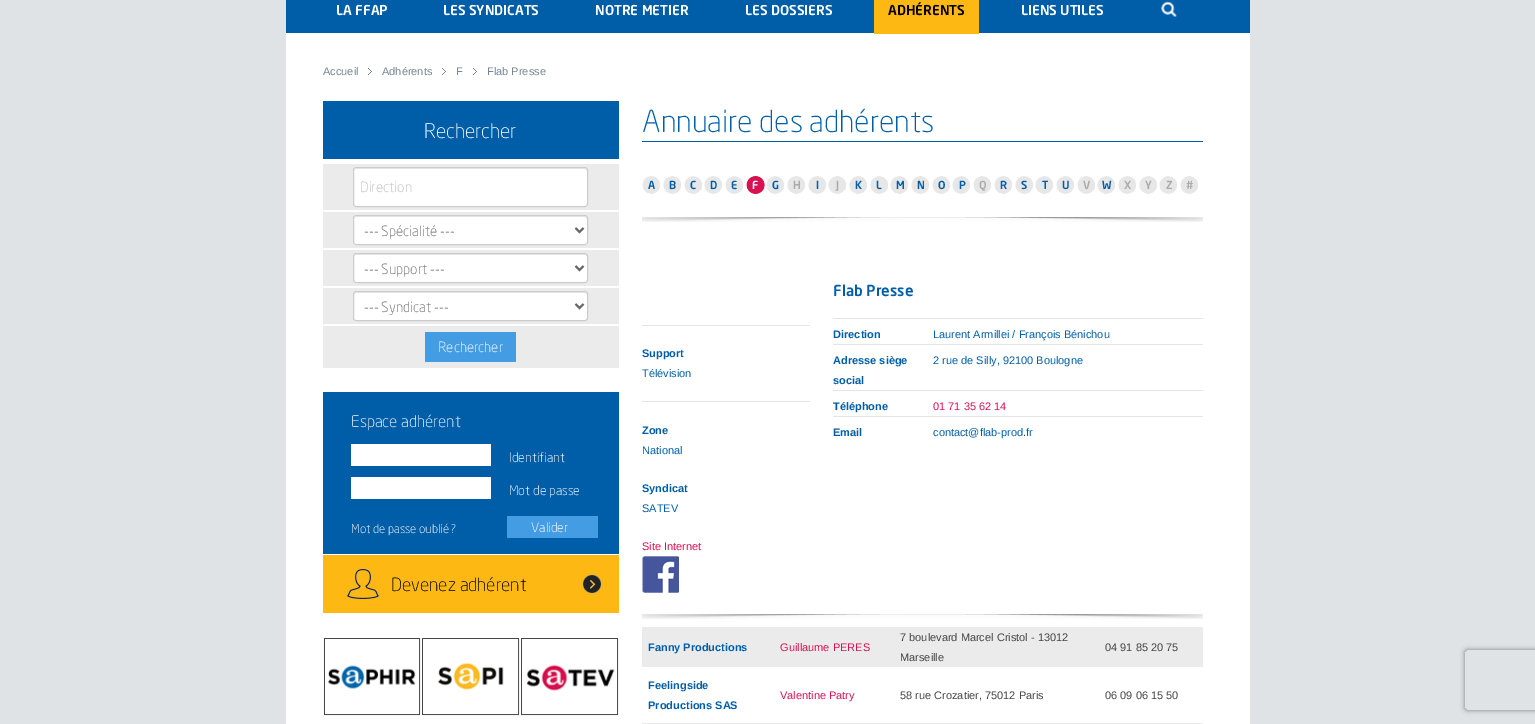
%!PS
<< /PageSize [1535 724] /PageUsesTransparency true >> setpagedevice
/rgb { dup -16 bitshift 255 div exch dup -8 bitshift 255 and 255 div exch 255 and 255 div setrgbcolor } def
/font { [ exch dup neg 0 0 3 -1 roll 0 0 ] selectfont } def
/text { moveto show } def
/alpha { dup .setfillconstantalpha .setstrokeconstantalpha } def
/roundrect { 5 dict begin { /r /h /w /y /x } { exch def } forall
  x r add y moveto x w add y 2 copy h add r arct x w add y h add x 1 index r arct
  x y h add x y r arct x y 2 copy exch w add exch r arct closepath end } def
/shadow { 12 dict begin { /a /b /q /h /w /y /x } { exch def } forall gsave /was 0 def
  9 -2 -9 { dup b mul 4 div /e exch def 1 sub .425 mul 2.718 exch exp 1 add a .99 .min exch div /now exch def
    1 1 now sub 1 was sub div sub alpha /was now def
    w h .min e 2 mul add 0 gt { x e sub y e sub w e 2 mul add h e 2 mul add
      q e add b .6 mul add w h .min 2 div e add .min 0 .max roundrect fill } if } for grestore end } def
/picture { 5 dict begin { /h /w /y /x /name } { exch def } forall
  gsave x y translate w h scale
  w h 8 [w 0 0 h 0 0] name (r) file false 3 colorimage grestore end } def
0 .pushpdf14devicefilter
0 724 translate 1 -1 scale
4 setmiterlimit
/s1 { /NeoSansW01-Medium 13.5 font 16#FFFFFF rgb } def
/s2 { /NeoSansW01-Medium 13.5 font 16#000000 rgb } def
/s3 { /LiberationSans-Regular 11 font 16#758692 rgb } def
/s4 { /NeoSansW01-Light 20 font 16#FFFFFF rgb } def
/s5 { /NeoSansW01-Light 14 font 16#BABABA rgb } def
/s6 { /NeoSansW01-Light 14 font 16#666666 rgb } def
/s7 { /NeoSansW01-Light 14 font 16#FFFFFF rgb } def
/s8 { /NeoSansW01-Light 16 font 16#FFFFFF rgb } def
/s9 { /NeoSansW01-Light 13 font 16#FFFFFF rgb } def
/s10 { /NeoSansW01-Light 12 font 16#FFFFFF rgb } def
/s11 { /NeoSansW01-Light 18 font 16#000000 rgb } def
/s12 { /NeoSansW01-Light 30 font 16#005EA8 rgb } def
/s13 { /NeoSansW01-Medium 11 font 16#005EA8 rgb } def
/s14 { /NeoSansW01-Medium 11 font 16#FFFFFF rgb } def
/s15 { /NeoSansW01-Medium 11 font 16#AAAAAA rgb } def
/s16 { /LiberationSans-Bold 11 font 16#005EA8 rgb } def
/s17 { /LiberationSans-Regular 11 font 16#005EA8 rgb } def
/s18 { /LiberationSans-Regular 11 font 16#D71252 rgb } def
/s19 { /NeoSansW01-Medium 15 font 16#005EA8 rgb } def
/s20 { /LiberationSans-Regular 11 font 16#454545 rgb } def
16#DFE3E6 rgb
0 0 1535 724 rectfill
16#005EA8 rgb
286 0 964 33 rectfill
s1
(LA FFAP) 336 15 text
(LES SYNDICATS) 443 15 text
(NOTRE METIER) 595 15 text
(LES DOSSIERS) 745 15 text
286 33 964 691 rectfill
16#FDB813 rgb
874 0 105 34 rectfill
s2
(ADHÉRENTS) 888 15 text
s1
(LIENS UTILES) 1021 15 text
(pic1.raw) 1161 1 16 16 picture
s3
(Accueil) 323 75 text
(pic2.raw) 368 68 4 7 picture
(Adhérents) 382 75 text
(pic2.raw) 442 68 4 7 picture
(F) 456 75 text
(pic2.raw) 473 68 4 7 picture
(Flab Presse) 487 75 text
16#005EA8 rgb
323 101 296 58 rectfill
s4
(Rechercher) 424 138 text
16#EBEBEB rgb
323 164 296 46 rectfill
16#FFFFFF rgb
353 167 235 40 3 roundrect fill
16#ECECEC rgb
356 169 moveto 585 169 lineto 586 169 587 170 587 171 curveto 587 169 lineto 585 168 lineto 356 168 lineto 354 168 354 170 354 171 curveto 354 170 355 169 356 169 curveto closepath fill
16#CCCCCC rgb
353.5 167.5 234 39 2.5 roundrect stroke
s5
(Direction) 360 192 text
16#EBEBEB rgb
323 212 296 36 rectfill
16#FFFFFF rgb
353 215 235 30 3 roundrect fill
16#ECECEC rgb
356 217 moveto 585 217 lineto 586 217 587 218 587 219 curveto 587 217 lineto 585 216 lineto 356 216 lineto 354 216 354 218 354 219 curveto 354 218 355 217 356 217 curveto closepath fill
16#CCCCCC rgb
353.5 215.5 234 29 2.5 roundrect stroke
16#666666 rgb
2 setlinewidth
575.5 228 moveto 579.5 232 lineto 583.5 228 lineto stroke
(--- Spécialité ---) 364 236 text
16#EBEBEB rgb
323 250 296 36 rectfill
16#FFFFFF rgb
353 253 235 30 3 roundrect fill
16#ECECEC rgb
356 255 moveto 585 255 lineto 586 255 587 256 587 257 curveto 587 255 lineto 585 254 lineto 356 254 lineto 354 254 354 256 354 257 curveto 354 256 355 255 356 255 curveto closepath fill
16#CCCCCC rgb
1 setlinewidth
353.5 253.5 234 29 2.5 roundrect stroke
16#666666 rgb
2 setlinewidth
575.5 266 moveto 579.5 270 lineto 583.5 266 lineto stroke
(--- Support ---) 364 274 text
16#EBEBEB rgb
323 288 296 36 rectfill
16#FFFFFF rgb
353 291 235 30 3 roundrect fill
16#ECECEC rgb
356 293 moveto 585 293 lineto 586 293 587 294 587 295 curveto 587 293 lineto 585 292 lineto 356 292 lineto 354 292 354 294 354 295 curveto 354 294 355 293 356 293 curveto closepath fill
16#CCCCCC rgb
1 setlinewidth
353.5 291.5 234 29 2.5 roundrect stroke
16#666666 rgb
2 setlinewidth
575.5 304 moveto 579.5 308 lineto 583.5 304 lineto stroke
(--- Syndicat ---) 364 312 text
16#EBEBEB rgb
323 326 296 42 rectfill
16#449DE3 rgb
425 332 91 30 rectfill
s7
(Rechercher) 438 352 text
16#005EA8 rgb
323 392 296 162 rectfill
s8
(Espace adhérent) 351 427 text
351 444 140 22 rectfill
s9
(Identifiant) 509 462 text
351 477 140 22 rectfill
(Mot de passe) 509 495 text
s10
(Mot de passe oublié ?) 351 533 text
16#449DE3 rgb
507 516 91 22 rectfill
s9
(Valider) 531 532 text
16#FDB813 rgb
323 555 296 58 rectfill
(pic3.raw) 347 569 32 30 picture
(pic4.raw) 583 575 18 18 picture
s11
(Devenez adhérent) 391 591 text
(pic5.raw) 323 637 98 79 picture
(pic6.raw) 421 637 99 79 picture
(pic7.raw) 520 637 99 79 picture
16#005EA8 rgb
642 141 561 1 rectfill
s12
(Annuaire des adhérents) 642 132 text
(pic8.raw) 642 217 561 5 picture
(pic9.raw) 642 176 18 18 picture
s13
(A) 648 189 text
(pic9.raw) 663 176 18 18 picture
(B) 669 189 text
(pic9.raw) 684 176 18 18 picture
(C) 690 189 text
(pic9.raw) 704 176 18 18 picture
(D) 710 189 text
(pic9.raw) 725 176 18 18 picture
(E) 731 189 text
(pic10.raw) 746 176 19 18 picture
s14
(F) 752 189 text
(pic9.raw) 766 176 18 18 picture
s13
(G) 772 189 text
(pic9.raw) 787 176 18 18 picture
s15
(H) 793 189 text
(pic9.raw) 808 176 18 18 picture
s13
(I) 816 189 text
(pic9.raw) 828 176 18 18 picture
s15
(J) 836 189 text
(pic9.raw) 849 176 18 18 picture
s13
(K) 855 189 text
(pic9.raw) 870 176 18 18 picture
(L) 876 189 text
(pic9.raw) 890 176 18 18 picture
(M) 896 189 text
(pic9.raw) 911 176 18 18 picture
(N) 917 189 text
(pic9.raw) 932 176 18 18 picture
(O) 938 189 text
(pic9.raw) 952 176 18 18 picture
(P) 959 189 text
(pic9.raw) 973 176 18 18 picture
s15
(Q) 979 189 text
(pic9.raw) 994 176 18 18 picture
s13
(R) 1000 189 text
(pic9.raw) 1015 176 18 18 picture
(S) 1021 189 text
(pic9.raw) 1035 176 18 18 picture
(T) 1042 189 text
(pic9.raw) 1056 176 18 18 picture
(U) 1062 189 text
(pic9.raw) 1077 176 18 18 picture
s15
(V) 1083 189 text
(pic9.raw) 1097 176 18 18 picture
s13
(W) 1102 189 text
(pic9.raw) 1118 176 18 18 picture
s15
(X) 1124 189 text
(pic9.raw) 1139 176 18 18 picture
(Y) 1145 189 text
(pic9.raw) 1159 176 18 18 picture
(Z) 1166 189 text
(pic9.raw) 1180 176 18 18 picture
(#) 1186 189 text
16#E5E5E5 rgb
642 325 168 1 rectfill
642 401 168 1 rectfill
s16
(Support) 642 357 text
s17
(Télévision) 642 377 text
s16
(Zone) 642 434 text
s17
(National) 642 454 text
s16
(Syndicat) 642 492 text
s17
(SATEV) 642 512 text
s18
(Site Internet) 642 550 text
(pic11.raw) 642 556 37 37 picture
s19
(Flab Presse) 833 296 text
16#E5E5E5 rgb
833 318 370 1 rectfill
s16
(Direction) 833 338 text
s17
(Laurent Armillei / François Bénichou) 933 338 text
16#E5E5E5 rgb
833 344 370 1 rectfill
s16
(Adresse siège) 833 364 text
(social) 833 384 text
s17
(2 rue de Silly, 92100 Boulogne) 933 364 text
16#E5E5E5 rgb
833 390 370 1 rectfill
s16
(Téléphone) 833 410 text
s18
(01 71 35 62 14) 933 410 text
16#E5E5E5 rgb
833 416 370 1 rectfill
s16
(Email) 833 436 text
s17
(contact@flab-prod.fr) 933 436 text
(pic8.raw) 642 614 561 5 picture
16#EBEBEB rgb
642 627 561 40 rectfill
s16
(Fanny Productions) 648 651 text
s18
(Guillaume PERES) 780 651 text
s20
(7 boulevard Marcel Cristol - 13012) 900 641 text
(Marseille) 900 661 text
(04 91 85 20 75) 1105 651 text
s16
(Feelingside) 648 689 text
(Productions SAS) 648 709 text
s18
(Valentine Patry) 780 699 text
s20
(58 rue Crozatier, 75012 Paris) 900 699 text
(06 09 06 15 50) 1105 699 text
16#EBEBEB rgb
642 723 561 1 rectfill
gsave
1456 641 moveto 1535 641 lineto 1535 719 lineto 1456 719 lineto closepath 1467 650 moveto 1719 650 lineto 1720 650 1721 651 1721 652 curveto 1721 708 lineto 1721 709 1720 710 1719 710 curveto 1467 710 lineto 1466 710 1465 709 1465 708 curveto 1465 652 lineto 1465 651 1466 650 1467 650 curveto closepath eoclip newpath
16#808080 rgb
1465 650 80 60 2 2.5 1 shadow
grestore
.poppdf14devicefilter showpage
